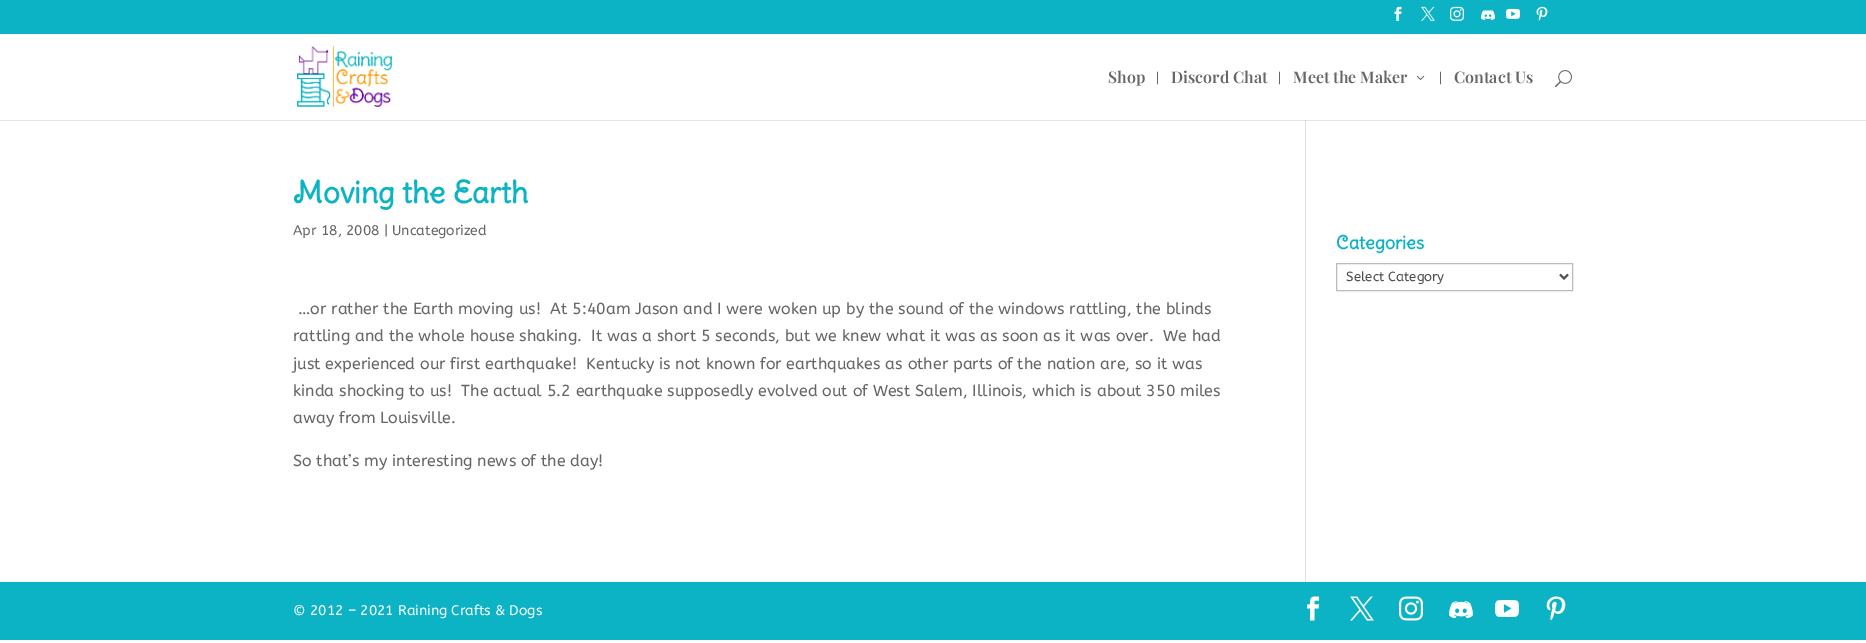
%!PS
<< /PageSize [1866 643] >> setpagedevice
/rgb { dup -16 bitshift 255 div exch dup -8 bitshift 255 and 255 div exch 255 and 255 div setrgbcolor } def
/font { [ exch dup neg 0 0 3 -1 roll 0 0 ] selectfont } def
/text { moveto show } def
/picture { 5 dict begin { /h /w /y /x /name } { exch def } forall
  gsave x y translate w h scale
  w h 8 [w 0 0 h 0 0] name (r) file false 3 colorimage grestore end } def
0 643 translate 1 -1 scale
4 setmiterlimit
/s1 { /PlayfairDisplay-SemiBold 16 font 16#666666 rgb } def
/s2 { /PlayfairDisplay-SemiBold 12 font 16#666666 rgb } def
/s3 { /DeliusSwashCaps-Bold 30 font 16#0CB3C5 rgb } def
/s4 { /ABeeZee-Regular 14 font 16#666666 rgb } def
/s5 { /ABeeZee-Regular 16 font 16#666666 rgb } def
/s6 { /DeliusSwashCaps-Bold 18 font 16#0CB3C5 rgb } def
/s7 { /ABeeZee-Regular 13.25 font 16#4E4E4E rgb } def
/s8 { /ABeeZee-Regular 14 font 16#FFFFFF rgb } def
16#FFFFFF rgb
0 0 1866 643 rectfill
16#E6E6E6 rgb
0 120 1866 1 rectfill
16#0CB3C5 rgb
0 0 1866 34 rectfill
(pic1.raw) 1394 6 8 15 picture
(pic2.raw) 1421 6 14 15 picture
(pic3.raw) 1450 6 14 15 picture
(pic4.raw) 1481 9 14 11 picture
(pic5.raw) 1506 8 14 11 picture
(pic6.raw) 1536 6 12 15 picture
16#E2E2E2 rgb
1305 119 1 463 rectfill
16#FFFFFF rgb
1305 119 1 1 rectfill
(pic7.raw) 297 46 95 61 picture
s1
(Shop) 1108 83 text
s2
(|) 1156 82 text
s1
(Discord Chat) 1171 83 text
s2
(|) 1278 82 text
s1
(Meet the Maker) 1293 83 text
(pic8.raw) 1416 75 9 5 picture
s2
(|) 1439 82 text
s1
(Contact Us) 1454 83 text
(pic9.raw) 1555 70 17 18 picture
16#CBCBCB rgb
1305 120 1 1 rectfill
s3
(Moving the Earth) 293 203 text
s4
(Apr 18, 2008 | Uncategorized) 293 235 text
s5
(…or rather the Earth moving us!  At 5:40am Jason and I were woken up by the sound of the windows rattling, the blinds) 298 314 text
(rattling and the whole house shaking.  It was a short 5 seconds, but we knew what it was as soon as it was over.  We had) 293 341 text
(just experienced our first earthquake!  Kentucky is not known for earthquakes as other parts of the nation are, so it was) 293 369 text
(kinda shocking to us!  The actual 5.2 earthquake supposedly evolved out of West Salem, Illinois, which is about 350 miles) 293 396 text
(away from Louisville.) 293 423 text
(So that’s my interesting news of the day!) 293 466 text
s6
(Categories) 1336 249 text
16#BBBBBB rgb
1336.5 263.5 236 27 rectstroke
16#4E4E4E rgb
2 setlinewidth
1560 274.5 moveto 1564 278.5 lineto 1568 274.5 lineto stroke
s7
(Select Category) 1346 281 text
16#0CB3C5 rgb
0 582 1866 58 rectfill
s8
(© 2012 – 2021 Raining Crafts & Dogs) 293 615 text
(pic10.raw) 1307 596 13 25 picture
(pic11.raw) 1350 596 24 25 picture
(pic12.raw) 1399 596 24 25 picture
(pic13.raw) 1449 601 24 18 picture
(pic14.raw) 1495 600 24 17 picture
(pic15.raw) 1546 596 20 25 picture
showpage
